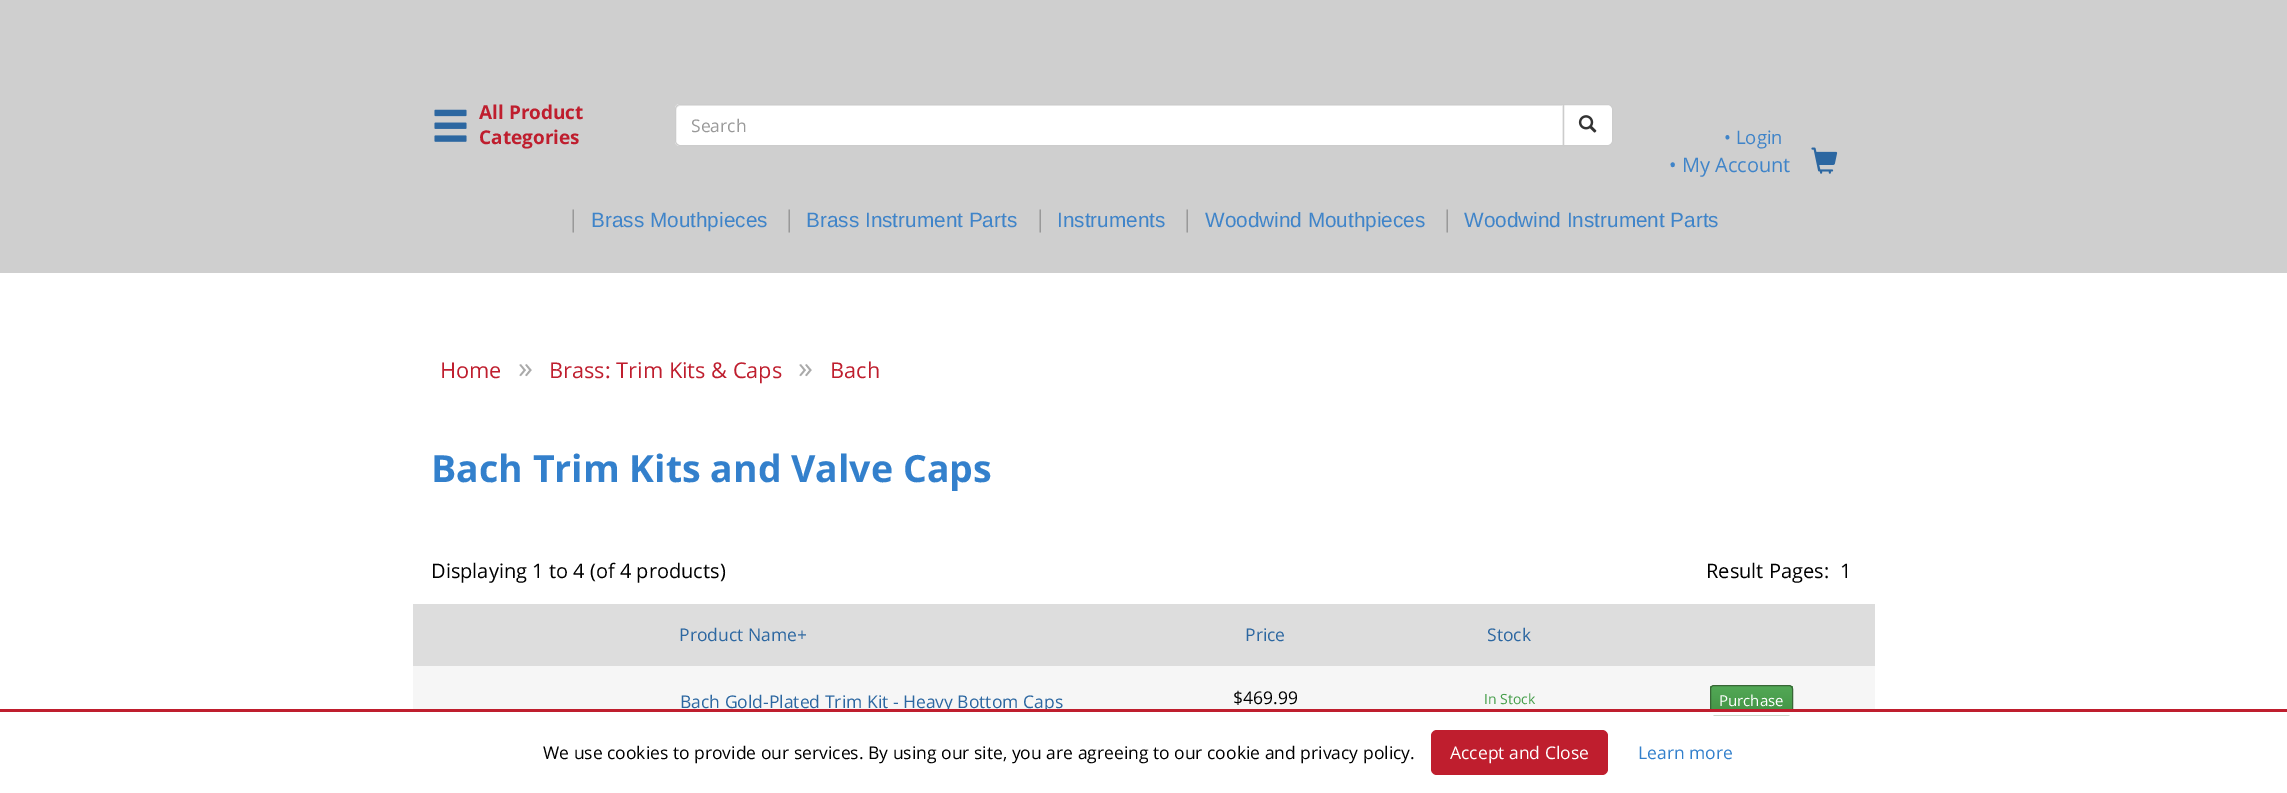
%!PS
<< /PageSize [2287 793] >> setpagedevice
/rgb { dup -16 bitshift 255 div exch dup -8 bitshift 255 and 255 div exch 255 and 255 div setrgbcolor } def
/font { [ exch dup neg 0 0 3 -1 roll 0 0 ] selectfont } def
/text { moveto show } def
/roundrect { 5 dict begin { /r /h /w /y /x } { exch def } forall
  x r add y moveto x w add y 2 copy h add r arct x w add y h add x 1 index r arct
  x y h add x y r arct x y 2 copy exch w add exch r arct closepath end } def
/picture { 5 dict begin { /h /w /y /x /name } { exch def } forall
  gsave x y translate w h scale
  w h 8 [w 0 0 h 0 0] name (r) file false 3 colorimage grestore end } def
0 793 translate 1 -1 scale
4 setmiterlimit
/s1 { /OpenSans-Bold 19 font 16#BF1E2E rgb } def
/s2 { /OpenSans-Regular 17.5 font 16#999999 rgb } def
/s3 { /OpenSans-Regular 18.5 font 16#3F84C9 rgb } def
/s4 { /OpenSans-Regular 20 font 16#3F84C9 rgb } def
/s5 { /OpenSans-Regular 23 font 16#999999 rgb } def
/s6 { /LiberationSans-Regular 20.75 font 16#3F84C9 rgb } def
/s7 { /OpenSans-Regular 21.75 font 16#BF1E2E rgb } def
/s8 { /OpenSans-Regular 30 font 16#AAAAAA rgb } def
/s9 { /OpenSans-Bold 37.5 font 16#3380CC rgb } def
/s10 { /OpenSans-Regular 20 font 16#000000 rgb } def
/s11 { /OpenSans-Regular 17.5 font 16#2C67A1 rgb } def
/s12 { /OpenSans-Regular 17.5 font 16#000000 rgb } def
/s13 { /OpenSans-Regular 14 font 16#489F4C rgb } def
/s14 { /OpenSans-Regular 15 font 16#FFFFFF rgb } def
/s15 { /OpenSans-Regular 17.5 font 16#FFFFFF rgb } def
/s16 { /OpenSans-Regular 17.5 font 16#3380CC rgb } def
16#FFFFFF rgb
0 0 2287 793 rectfill
16#CFCFCF rgb
0 0 2287 273 rectfill
(pic1.raw) 434 109 33 33 picture
s1
(All Product) 479 119 text
(Categories) 479 144 text
16#FFFFFF rgb
680 104 moveto 1564 104 lineto 1564 146 lineto 680 146 lineto 677 146 675 144 675 141 curveto 675 109 lineto 675 106 677 104 680 104 curveto closepath fill
16#ECECEC rgb
680 106 moveto 1562 106 lineto 1562 145 lineto 1563 145 lineto 1563 105 lineto 680 105 lineto 677 105 676 107 676 110 curveto 676 108 678 106 680 106 curveto closepath fill
16#CCCCCC rgb
680 104.5 moveto 1563.5 104.5 lineto 1563.5 145.5 lineto 680 145.5 lineto 677.5 145.5 675.5 143.5 675.5 141 curveto 675.5 109 lineto 675.5 106.5 677.5 104.5 680 104.5 curveto closepath stroke
s2
(Search) 691 132 text
16#FFFFFF rgb
1563.5 104.5 moveto 1608 104.5 lineto 1610.5 104.5 1612.5 106.5 1612.5 109 curveto 1612.5 141 lineto 1612.5 143.5 1610.5 145.5 1608 145.5 curveto 1563.5 145.5 lineto closepath gsave fill grestore
16#CCCCCC rgb
stroke
(pic2.raw) 1578 115 19 18 picture
s3
(• Login) 1724 144 text
s4
(• My Account) 1669 172 text
(pic3.raw) 1811 147 27 27 picture
s5
(|) 567 227 text
s6
(Brass Mouthpieces) 591 227 text
s5
(|) 783 227 text
s6
(Brass Instrument Parts) 806 227 text
s5
(|) 1034 227 text
s6
(Instruments) 1057 227 text
s5
(|) 1181 227 text
s6
(Woodwind Mouthpieces) 1205 227 text
s5
(|) 1441 227 text
s6
(Woodwind Instrument Parts) 1464 227 text
s7
(Home) 440 378 text
s8
(») 518 378 text
s7
(Brass: Trim Kits & Caps) 549 378 text
s8
(») 798 378 text
s7
(Bach) 830 378 text
s9
(Bach Trim Kits and Valve Caps) 431 482 text
s10
(Displaying 1 to 4 \(of 4 products\)) 431 578 text
(Result Pages:) 1706 578 text
(1) 1840 578 text
16#DDDDDD rgb
413 604 1462 62 rectfill
s11
(Product Name+) 679 641 text
(Price) 1245 641 text
(Stock) 1487 641 text
16#F6F6F6 rgb
413 666 1462 43 rectfill
s11
(Bach Gold-Plated Trim Kit - Heavy Bottom Caps) 680 708 text
s12
($469.99) 1233 704 text
s13
(In Stock) 1484 704 text
gsave
1710 685 83 30 4 roundrect clip newpath
gsave 1710 686 moveto 1793 686 lineto 1793 709 lineto 1710 709 lineto closepath clip newpath
<< /ShadingType 2 /ColorSpace /DeviceRGB /Coords [1711 686 1711 714] /Extend [true true] /Function << /FunctionType 3 /Domain [0 1] /Functions [<< /FunctionType 2 /Domain [0 1] /C0 [0.318 0.655 0.333] /C1 [0.318 0.655 0.333] /N 1 >> << /FunctionType 2 /Domain [0 1] /C0 [0.318 0.655 0.333] /C1 [0.263 0.58 0.271] /N 1 >>] /Bounds [0.05] /Encode [0 1 0 1] >> >> shfill grestore
grestore
16#386636 rgb
1710.5 685.5 82 29 3.5 roundrect stroke
s14
(Purchase) 1719 706 text
944 712 849 3 rectfill
16#BF1E2E rgb
0 709 2287 3 rectfill
s12
(We use cookies to provide our services. By using our site, you are agreeing to our cookie and privacy policy.) 543 759 text
16#BF1E2E rgb
1431 730 177 45 6 roundrect fill
s15
(Accept and Close) 1450 759 text
s16
(Learn more) 1638 759 text
showpage
